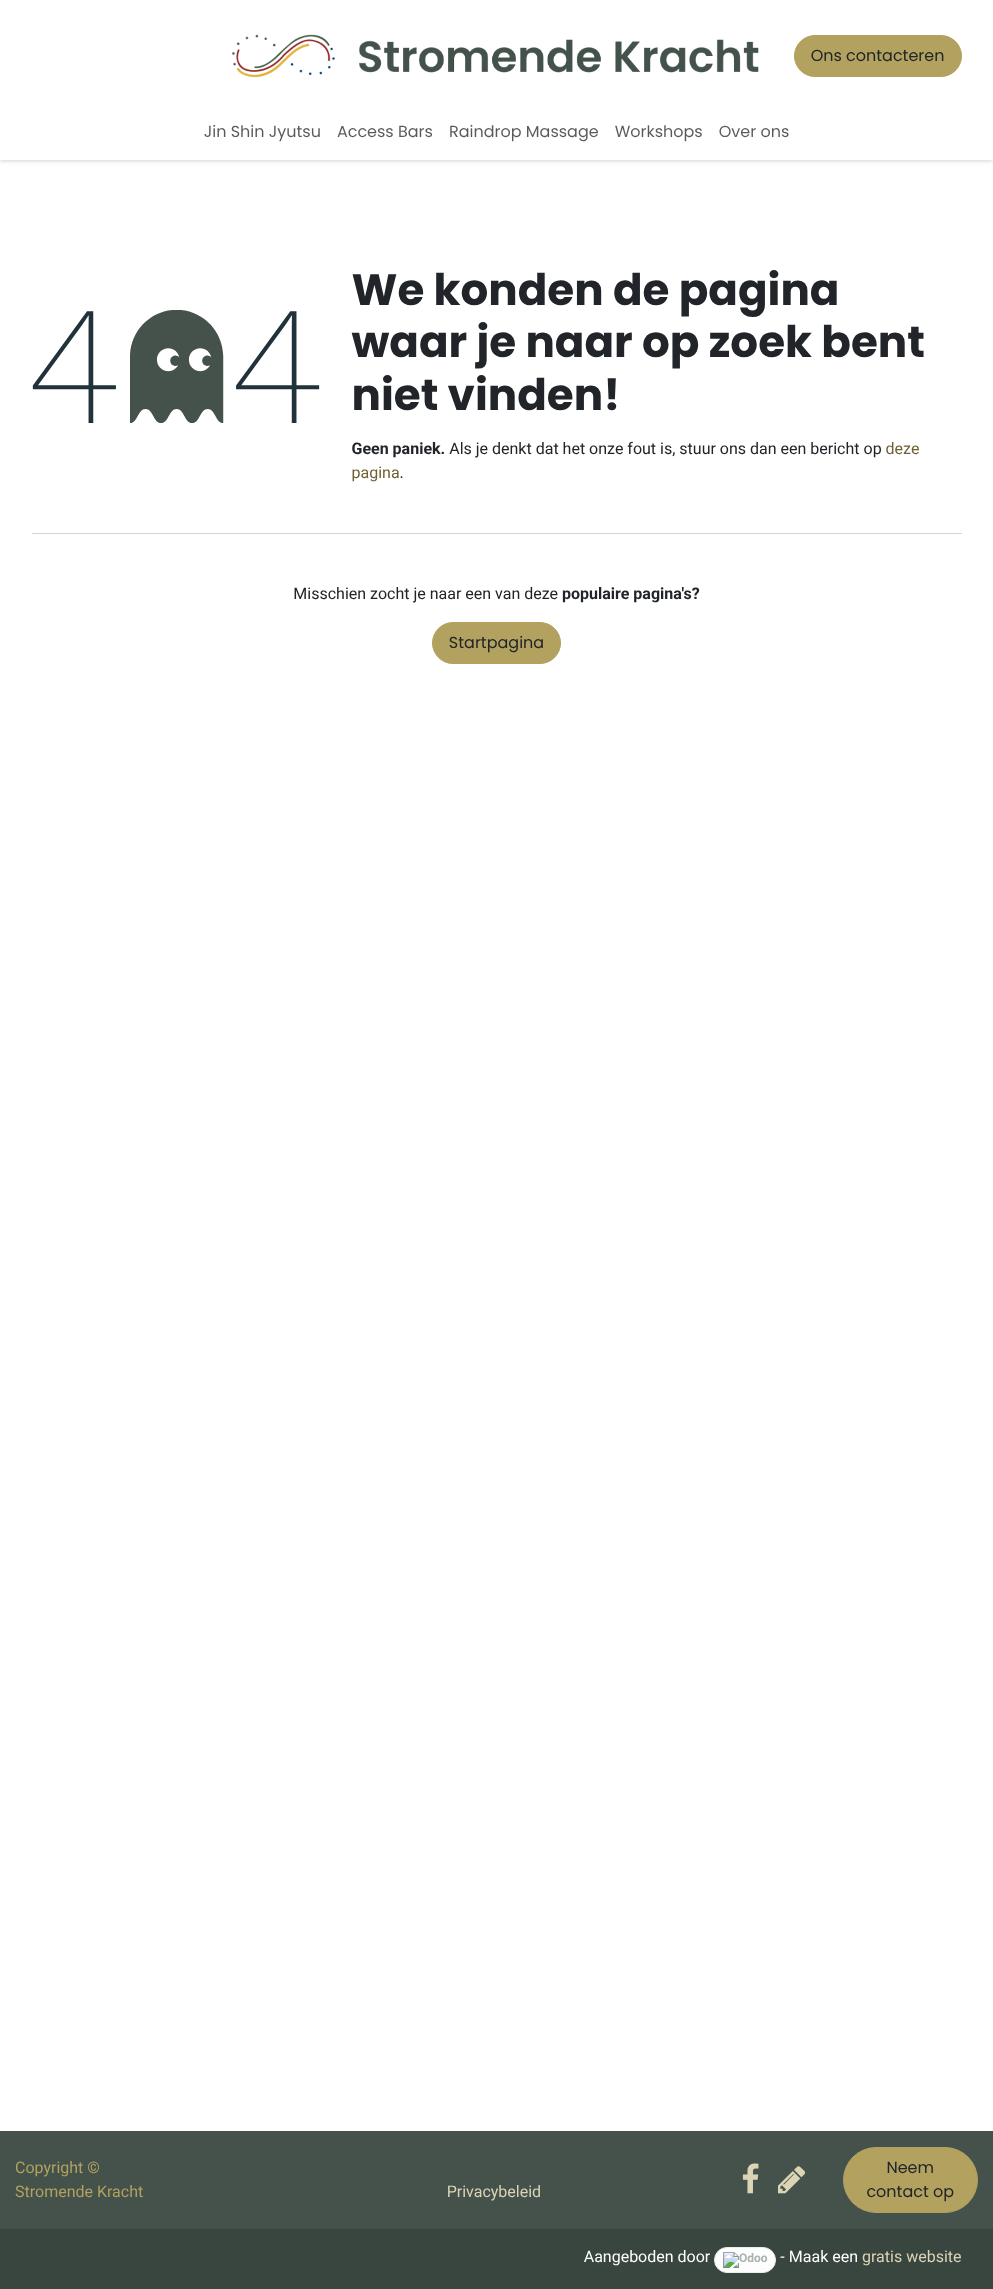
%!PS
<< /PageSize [993 2289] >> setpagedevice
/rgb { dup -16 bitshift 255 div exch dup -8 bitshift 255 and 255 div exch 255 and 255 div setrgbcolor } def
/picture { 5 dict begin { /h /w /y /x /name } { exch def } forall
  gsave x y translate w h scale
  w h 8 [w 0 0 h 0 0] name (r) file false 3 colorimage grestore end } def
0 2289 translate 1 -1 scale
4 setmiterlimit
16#FFFFFF rgb
0 0 993 2289 rectfill
(pic1.raw) 0 34 993 2255 picture
showpage
